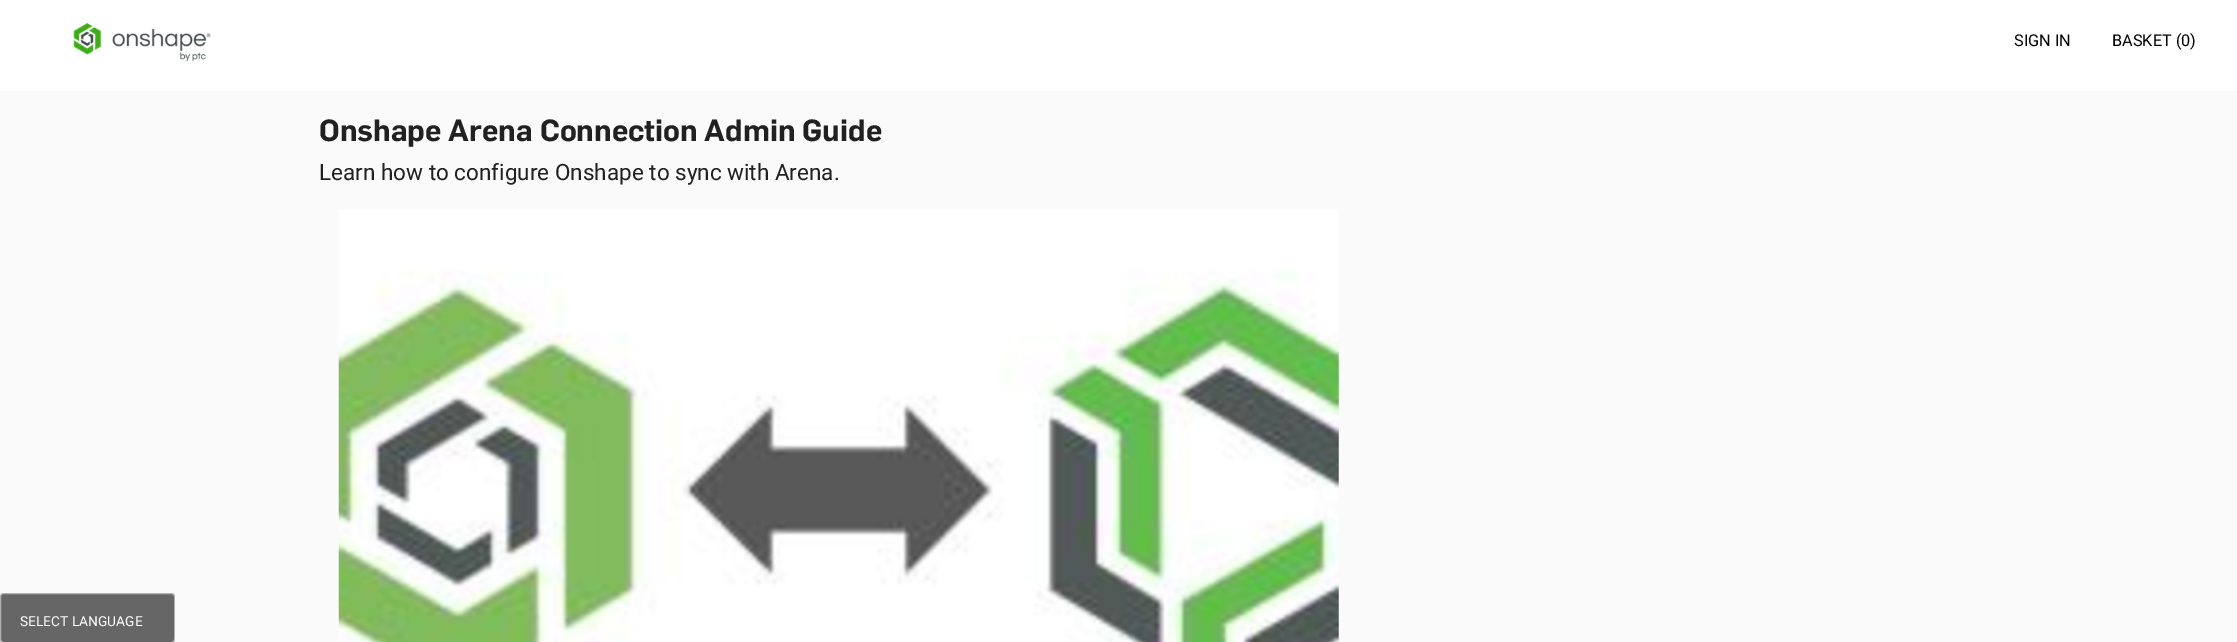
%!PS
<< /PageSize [2237 642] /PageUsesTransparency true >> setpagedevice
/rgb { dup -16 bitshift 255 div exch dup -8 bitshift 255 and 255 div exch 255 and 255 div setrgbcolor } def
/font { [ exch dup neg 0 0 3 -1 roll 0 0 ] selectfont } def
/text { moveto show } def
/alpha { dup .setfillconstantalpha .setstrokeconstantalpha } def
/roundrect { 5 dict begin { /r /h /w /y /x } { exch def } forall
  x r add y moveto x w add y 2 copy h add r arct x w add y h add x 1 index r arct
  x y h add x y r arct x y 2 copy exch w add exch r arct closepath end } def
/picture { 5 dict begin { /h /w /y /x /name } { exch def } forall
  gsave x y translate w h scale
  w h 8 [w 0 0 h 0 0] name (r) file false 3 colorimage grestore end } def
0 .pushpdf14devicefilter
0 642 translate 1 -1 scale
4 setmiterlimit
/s1 { /Roboto-Regular 16.25 font 16#000000 rgb } def
/s2 { /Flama-SemiBold 30 font 16#212121 rgb } def
/s3 { /Roboto-Regular 22.5 font 16#212121 rgb } def
/s4 { /Roboto-Regular 13.75 font 16#FFFFFF rgb } def
16#FAFAFA rgb
0 0 2237 642 rectfill
16#FFFFFF rgb
0 0 2237 91 rectfill
(pic1.raw) 73 23 138 39 picture
s1
(SIGN IN) 2014 46 text
(BASKET \(0\)) 2112 46 text
s2
(Onshape Arena Connection Admin Guide) 319 141 text
s3
(Learn how to configure Onshape to sync with Arena.) 319 180 text
(pic2.raw) 338 209 1001 433 picture
16#666666 rgb
0 593 175 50 4 roundrect fill
0.5 alpha
16#F9FAFC rgb
0.5 593.5 174 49 3.5 roundrect stroke
1 alpha
s4
(SELECT LANGUAGE) 20 626 text
.poppdf14devicefilter showpage
